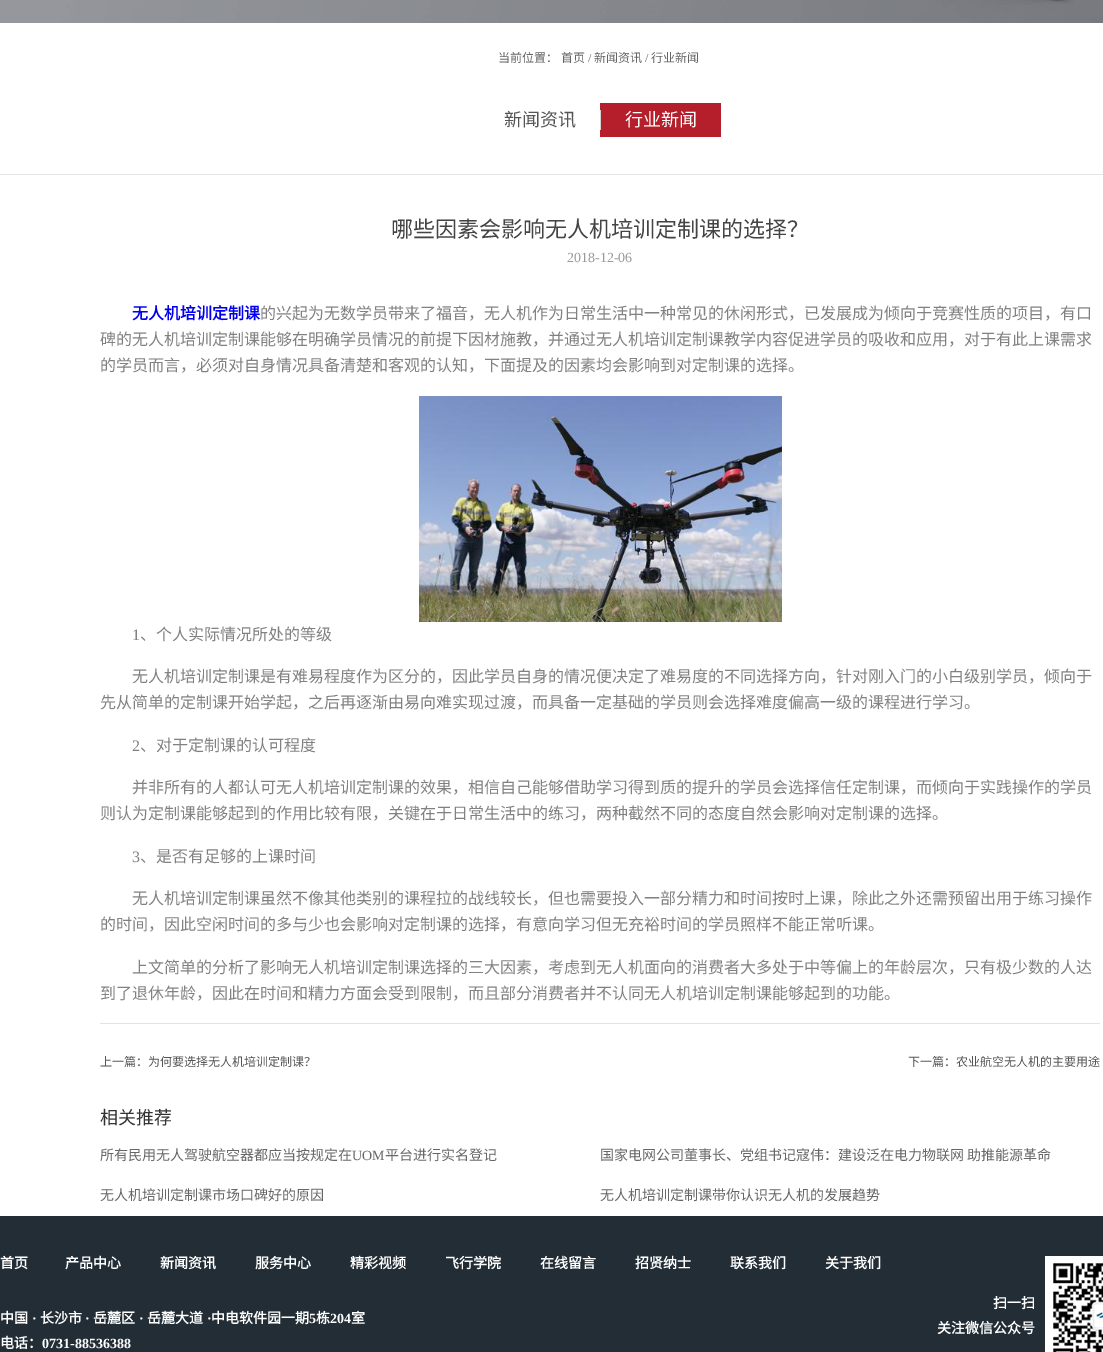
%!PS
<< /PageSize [1103 1352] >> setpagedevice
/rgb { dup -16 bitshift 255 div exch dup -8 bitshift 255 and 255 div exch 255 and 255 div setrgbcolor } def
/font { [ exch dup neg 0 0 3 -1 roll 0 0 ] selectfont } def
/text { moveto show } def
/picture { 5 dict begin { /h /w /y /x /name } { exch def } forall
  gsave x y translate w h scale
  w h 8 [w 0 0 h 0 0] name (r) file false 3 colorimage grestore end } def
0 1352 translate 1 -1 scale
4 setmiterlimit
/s1 { /NotoSansCJKSC-Regular 12 font 16#666666 rgb } def
/s2 { /LiberationSerif-Regular 12 font 16#666666 rgb } def
/s3 { /NotoSansCJKSC-Regular 18 font 16#555555 rgb } def
/s4 { /NotoSansCJKSC-Regular 18 font 16#FFFFFF rgb } def
/s5 { /NotoSansCJKSC-Regular 22 font 16#444444 rgb } def
/s6 { /LiberationSerif-Regular 14 font 16#999999 rgb } def
/s7 { /NotoSansCJKSC-Bold 16 font 16#0000EE rgb } def
/s8 { /NotoSansCJKSC-Regular 16 font 16#818181 rgb } def
/s9 { /LiberationSerif-Regular 16 font 16#818181 rgb } def
/s10 { /NotoSansCJKSC-Regular 12 font 16#555555 rgb } def
/s11 { /NotoSansCJKSC-Regular 18 font 16#333333 rgb } def
/s12 { /NotoSansCJKSC-Regular 14 font 16#666666 rgb } def
/s13 { /LiberationSerif-Regular 14 font 16#666666 rgb } def
/s14 { /NotoSansCJKSC-Bold 14 font 16#FFFFFF rgb } def
/s15 { /LiberationSerif-Bold 14 font 16#FFFFFF rgb } def
16#FFFFFF rgb
0 0 1103 1352 rectfill
(pic1.raw) 0 0 1103 23 picture
16#E5E5E5 rgb
0 174 1103 1 rectfill
s1
(当前位置：) 498 62 text
(首页) 561 62 text
s2
(/) 588 62 text
s1
(新闻资讯) 594 62 text
s2
(/) 645 62 text
s1
(行业新闻) 651 62 text
s3
(新闻资讯) 504 126 text
16#B51F2B rgb
600 103 121 34 rectfill
s4
(行业新闻) 625 126 text
16#D4D4D4 rgb
600 110 1 20 rectfill
s5
(哪些因素会影响无人机培训定制课的选择？) 391 237 text
s6
(2018-12-06) 567 262 text
s7
(无人机培训定制课) 132 319 text
s8
(的兴起为无数学员带来了福音，无人机作为日常生活中一种常见的休闲形式，已发展成为倾向于竞赛性质的项目，有口) 260 319 text
(碑的无人机培训定制课能够在明确学员情况的前提下因材施教，并通过无人机培训定制课教学内容促进学员的吸收和应用，对于有此上课需求) 100 345 text
(的学员而言，必须对自身情况具备清楚和客观的认知，下面提及的因素均会影响到对定制课的选择。) 100 371 text
(pic2.raw) 419 396 363 226 picture
s9
(1) 132 640 text
s8
(、个人实际情况所处的等级) 140 640 text
(无人机培训定制课是有难易程度作为区分的，因此学员自身的情况便决定了难易度的不同选择方向，针对刚入门的小白级别学员，倾向于) 132 682 text
(先从简单的定制课开始学起，之后再逐渐由易向难实现过渡，而具备一定基础的学员则会选择难度偏高一级的课程进行学习。) 100 708 text
s9
(2) 132 751 text
s8
(、对于定制课的认可程度) 140 751 text
(并非所有的人都认可无人机培训定制课的效果，相信自己能够借助学习得到质的提升的学员会选择信任定制课，而倾向于实践操作的学员) 132 793 text
(则认为定制课能够起到的作用比较有限，关键在于日常生活中的练习，两种截然不同的态度自然会影响对定制课的选择。) 100 819 text
s9
(3) 132 862 text
s8
(、是否有足够的上课时间) 140 862 text
(无人机培训定制课虽然不像其他类别的课程拉的战线较长，但也需要投入一部分精力和时间按时上课，除此之外还需预留出用于练习操作) 132 904 text
(的时间，因此空闲时间的多与少也会影响对定制课的选择，有意向学习但无充裕时间的学员照样不能正常听课。) 100 930 text
(上文简单的分析了影响无人机培训定制课选择的三大因素，考虑到无人机面向的消费者大多处于中等偏上的年龄层次，只有极少数的人达) 132 973 text
(到了退休年龄，因此在时间和精力方面会受到限制，而且部分消费者并不认同无人机培训定制课能够起到的功能。) 100 999 text
16#E3E3E3 rgb
100 1023 1000 1 rectfill
s10
(上一篇：为何要选择无人机培训定制课？) 100 1066 text
(下一篇：农业航空无人机的主要用途) 908 1066 text
s11
(相关推荐) 100 1124 text
s12
(所有民用无人驾驶航空器都应当按规定在) 100 1160 text
s13
(UOM) 352 1160 text
s12
(平台进行实名登记) 385 1160 text
(国家电网公司董事长、党组书记寇伟：建设泛在电力物联网 助推能源革命) 600 1160 text
(无人机培训定制课市场口碑好的原因) 100 1200 text
(无人机培训定制课带你认识无人机的发展趋势) 600 1200 text
16#222D35 rgb
0 1216 1103 136 rectfill
s14
(首页) 0 1268 text
(产品中心) 65 1268 text
(新闻资讯) 160 1268 text
(服务中心) 255 1268 text
(精彩视频) 350 1268 text
(飞行学院) 445 1268 text
(在线留言) 540 1268 text
(招贤纳士) 635 1268 text
(联系我们) 730 1268 text
(关于我们) 825 1268 text
(中国) 0 1323 text
s15
(·) 32 1323 text
s14
(长沙市) 40 1323 text
s15
(·) 85 1323 text
s14
(岳麓区) 93 1323 text
s15
(·) 139 1323 text
s14
(岳麓大道) 147 1323 text
s15
(·) 207 1323 text
s14
(中电软件园一期) 211 1323 text
s15
(5) 309 1323 text
s14
(栋) 316 1323 text
s15
(204) 330 1323 text
s14
(室) 351 1323 text
(电话：) 0 1348 text
s15
(0731-88536388) 42 1348 text
s14
(扫一扫) 993 1308 text
(关注微信公众号) 937 1333 text
(pic3.raw) 1045 1256 58 96 picture
showpage
